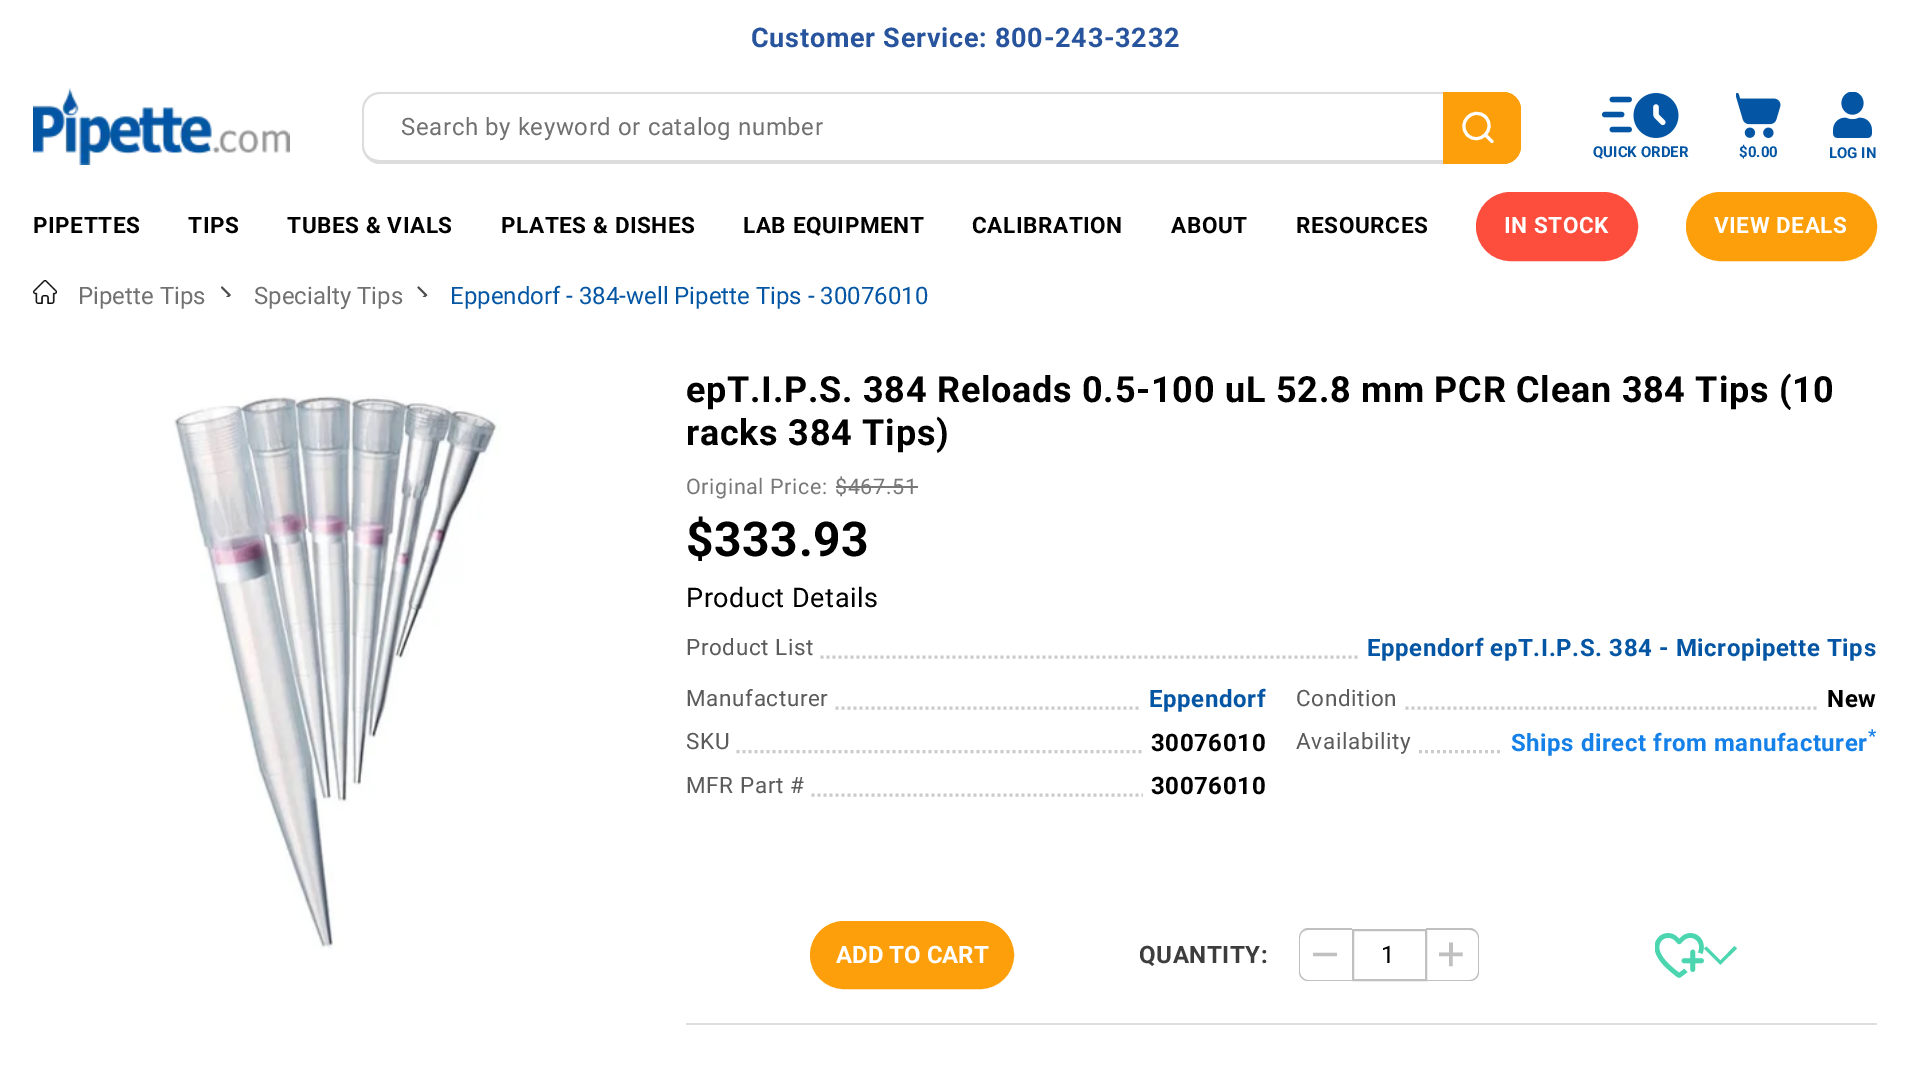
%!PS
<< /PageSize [1931 1067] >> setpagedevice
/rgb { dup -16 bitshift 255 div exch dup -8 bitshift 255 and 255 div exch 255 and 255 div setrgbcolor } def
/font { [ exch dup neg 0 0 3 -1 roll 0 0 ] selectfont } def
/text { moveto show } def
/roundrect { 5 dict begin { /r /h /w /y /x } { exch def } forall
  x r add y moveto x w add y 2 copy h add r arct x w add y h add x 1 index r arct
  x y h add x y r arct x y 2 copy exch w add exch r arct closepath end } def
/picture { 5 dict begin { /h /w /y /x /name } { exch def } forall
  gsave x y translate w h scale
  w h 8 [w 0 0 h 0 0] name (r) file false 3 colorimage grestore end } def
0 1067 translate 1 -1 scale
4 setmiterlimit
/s1 { /Roboto-Bold 15 font 16#0456A4 rgb } def
/s2 { /Roboto-Regular 24 font 16#717171 rgb } def
/s3 { /Roboto-Regular 24 font 16#0456A4 rgb } def
/s4 { /Roboto-Bold 24 font 16#FFFFFF rgb } def
16#FFFFFF rgb
0 0 1931 1067 rectfill
/Roboto-Bold 27 font
16#28549D rgb
751 47 moveto 0.75 0 (Customer Service: 800-243-3232) ashow
(pic1.raw) 33 88 257 77 picture
16#DDDDDD rgb
380 92 moveto 1443 92 lineto 1443 164 lineto 380 164 lineto 370 164 362 155 362 146 curveto 362 110 lineto 362 100 370 92 380 92 curveto closepath 380 94 moveto 1443 94 lineto 1443 160 lineto 380 160 lineto 371 160 364 154 364 146 curveto 364 110 lineto 364 101 371 94 380 94 curveto closepath eofill
/Roboto-Regular 24 font
16#717171 rgb
401 135 moveto 0.6 0 (Search by keyword or catalog number) ashow
16#FD9F0A rgb
1443 92 moveto 1503 92 lineto 1513 92 1521 100 1521 110 curveto 1521 146 lineto 1521 156 1513 164 1503 164 curveto 1443 164 lineto closepath fill
1443 92 moveto 1503 92 lineto 1513 92 1521 100 1521 110 curveto 1521 146 lineto 1521 155 1513 164 1503 164 curveto 1443 164 lineto closepath 1443 94 moveto 1503 94 lineto 1511 94 1518 101 1518 110 curveto 1518 146 lineto 1518 154 1511 160 1503 160 curveto 1443 160 lineto closepath eofill
16#FFFFFF rgb
3 setlinewidth
1 setlinecap
1 setlinejoin
1485.5 117 moveto 1497 129 1479 146.5 1467.5 135 curveto 1456 123 1473.5 105.5 1485.5 117 curveto closepath 1492 141.5 moveto 1485.5 135 lineto stroke
(pic2.raw) 1602 93 77 45 picture
s1
(QUICK ORDER) 1593 157 text
(pic3.raw) 1736 93 45 45 picture
($0.00) 1739 157 text
(pic4.raw) 1833 92 39 46 picture
(LOG IN) 1829 158 text
/Roboto-Bold 22.5 font
16#000000 rgb
33 233 moveto 0.6 0 (PIPETTES) ashow
188 233 moveto 0.6 0 (TIPS) ashow
287 233 moveto 0.6 0 (TUBES & VIALS) ashow
501 233 moveto 0.6 0 (PLATES & DISHES) ashow
743 233 moveto 0.6 0 (LAB EQUIPMENT) ashow
972 233 moveto 0.6 0 (CALIBRATION) ashow
1171 233 moveto 0.6 0 (ABOUT) ashow
1296 233 moveto 0.6 0 (RESOURCES) ashow
16#FD4E3D rgb
1477 193 160 67 33.5 roundrect gsave fill grestore
2 setlinewidth
0 setlinecap
0 setlinejoin
stroke
16#FFFFFF rgb
1504 233 moveto 0.6 0 (IN STOCK) ashow
16#FD9F0A rgb
1687 193 189 67 33.5 roundrect gsave fill grestore
stroke
16#FFFFFF rgb
1714 233 moveto 0.6 0 (VIEW DEALS) ashow
(pic5.raw) 33 280 24 24 picture
s2
(Pipette Tips) 78 304 text
(pic6.raw) 221 286 10 11 picture
(Specialty Tips) 254 304 text
(pic7.raw) 417 286 11 11 picture
s3
(Eppendorf - 384-well Pipette Tips - 30076010) 450 304 text
(pic8.raw) 173 395 328 554 picture
/Roboto-Bold 36 font
16#000000 rgb
686 402 moveto 0.75 0 (epT.I.P.S. 384 Reloads 0.5-100 uL 52.8 mm PCR Clean 384 Tips \(10) ashow
686 445 moveto 0.75 0 (racks 384 Tips\)) ashow
/Roboto-Regular 21.5 font
16#787878 rgb
686 494 moveto 0.6 0 (Original Price:) ashow
835 494 moveto 0.6 0 ($467.51) ashow
836 486 82 2 rectfill
/Roboto-Bold 48 font
16#000000 rgb
686 556 moveto 0.6 0 ($333.93) ashow
/Roboto-Regular 27 font
686 607 moveto 0.6 0 (Product Details) ashow
/Roboto-Regular 22.5 font
16#5B5B5B rgb
686 655 moveto 0.6 0 (Product List) ashow
/Roboto-Bold 24 font
16#0456A4 rgb
1367 656 moveto 0.6 0 (Eppendorf epT.I.P.S. 384 - Micropipette Tips) ashow
16#CCCBCB rgb
3 setlinewidth
[3 3] 0 setdash
820.5 657 moveto 1359 657 lineto stroke
/Roboto-Regular 22.5 font
16#5B5B5B rgb
686 706 moveto 0.6 0 (Manufacturer) ashow
16#CCCBCB rgb
835.5 708 moveto 1141.5 708 lineto stroke
/Roboto-Bold 24 font
16#0456A4 rgb
1149 707 moveto 0.6 0 (Eppendorf) ashow
/Roboto-Regular 22.5 font
16#5B5B5B rgb
686 749 moveto 0.6 0 (SKU) ashow
16#CCCBCB rgb
736.5 751.5 moveto 1143 751.5 lineto stroke
/Roboto-Bold 24 font
16#000000 rgb
1151 751 moveto 0.6 0 (30076010) ashow
/Roboto-Regular 22.5 font
16#5B5B5B rgb
686 793 moveto 0.6 0 (MFR Part #) ashow
/Roboto-Bold 24 font
16#000000 rgb
1151 794 moveto 0.6 0 (30076010) ashow
16#CCCBCB rgb
811.5 795 moveto 1143 795 lineto stroke
/Roboto-Regular 22.5 font
16#5B5B5B rgb
1296 706 moveto 0.6 0 (Condition) ashow
16#CCCBCB rgb
1405.5 708 moveto 1819.5 708 lineto stroke
/Roboto-Bold 24 font
16#000000 rgb
1827 707 moveto 0.6 0 (New) ashow
/Roboto-Regular 22.5 font
16#5B5B5B rgb
1296 749 moveto 0.6 0 (Availability) ashow
16#CCCBCB rgb
1419 751.5 moveto 1503 751.5 lineto stroke
/Roboto-Bold 24 font
16#1581E8 rgb
1511 751 moveto 0.6 0 (Ships direct from manufacturer) ashow
/Roboto-Bold 18 font
1868 742 moveto 0.6 0 (*) ashow
16#FD9F0A rgb
811 922 202 66 33 roundrect gsave fill grestore
2 setlinewidth
[] 0 setdash
stroke
s4
(ADD TO CART) 836 963 text
16#3D3D3D rgb
1139 963 moveto 0.6 0 (QUANTITY:) ashow
16#C0C0C0 rgb
1308 928 moveto 1352 928 lineto 1352 981 lineto 1308 981 lineto 1303 981 1299 977 1299 972 curveto 1299 938 lineto 1299 933 1303 928 1308 928 curveto closepath 1308 930 moveto 1352 930 lineto 1352 980 lineto 1308 980 lineto 1304 980 1300 976 1300 972 curveto 1300 938 lineto 1300 933 1304 930 1308 930 curveto closepath eofill
/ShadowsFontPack-Regular 24 font
1313 965 moveto 0.6 0 (<) ashow
1353 930 73 50 rectstroke
/Roboto-Regular 24 font
16#000000 rgb
1381 963 moveto 1 0 (1) ashow
16#C0C0C0 rgb
1426 928 moveto 1470 928 lineto 1475 928 1479 933 1479 938 curveto 1479 972 lineto 1479 977 1475 981 1470 981 curveto 1426 981 lineto closepath 1426 930 moveto 1470 930 lineto 1474 930 1478 933 1478 938 curveto 1478 972 lineto 1478 976 1474 980 1470 980 curveto 1426 980 lineto closepath eofill
/ShadowsFontPack-Regular 24 font
1439 965 moveto 0.6 0 (=) ashow
(pic9.raw) 1655 933 49 45 picture
16#4BD6B0 rgb
1720.5 964.5 moveto 1720.5 965 lineto 1704 948.5 lineto 1706.5 946.5 lineto 1720.5 960.5 lineto 1734.5 946 lineto 1737 948.5 lineto closepath fill
16#E0DFDF rgb
686 1023 1191 2 rectfill
showpage
